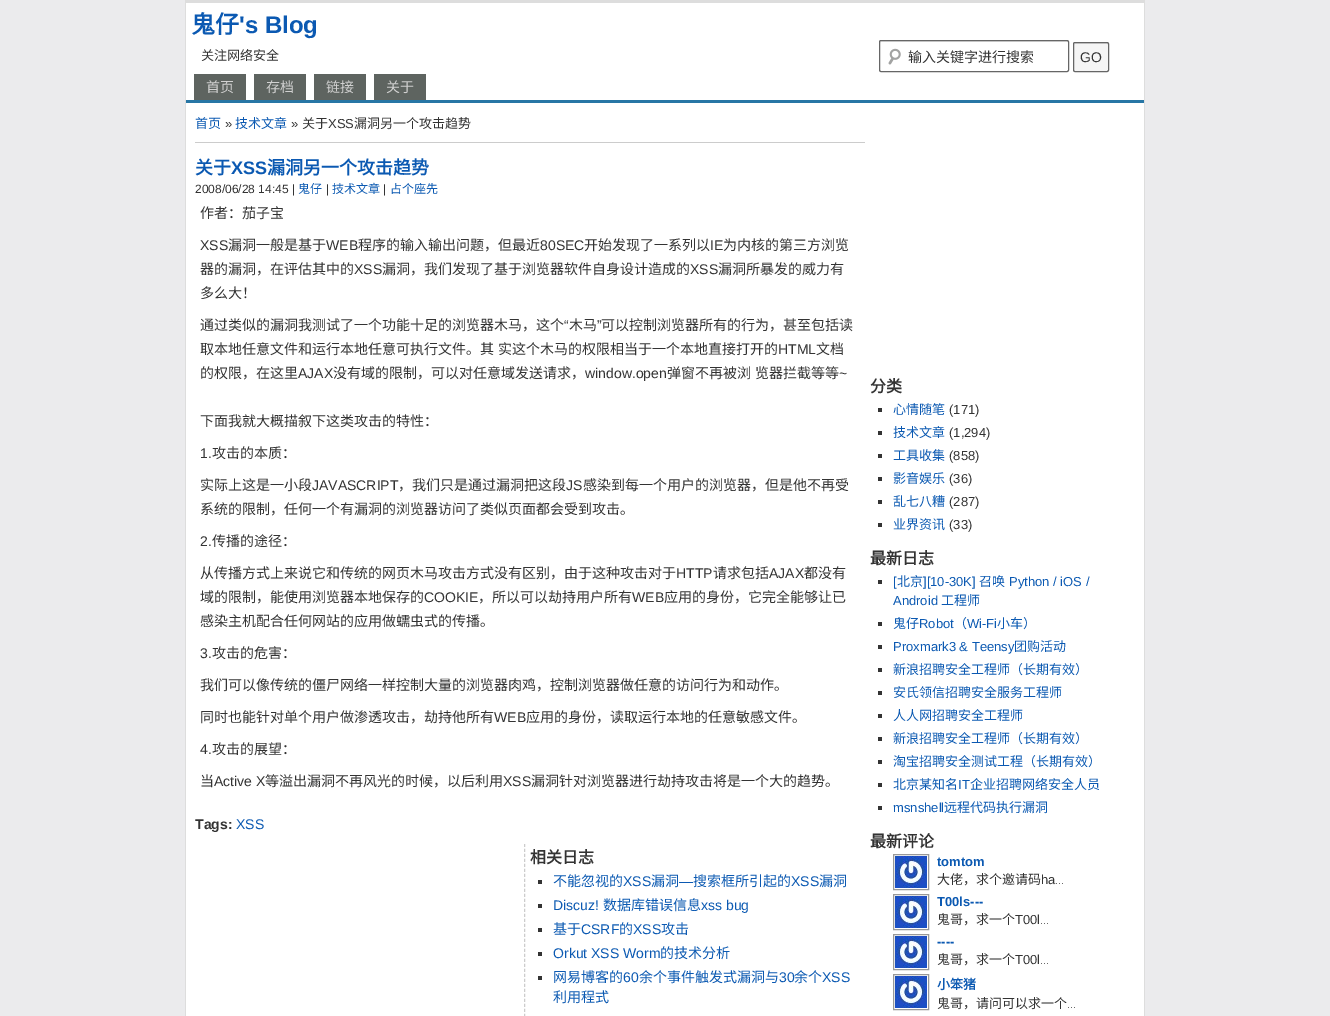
%!PS
<< /PageSize [1330 1016] >> setpagedevice
/rgb { dup -16 bitshift 255 div exch dup -8 bitshift 255 and 255 div exch 255 and 255 div setrgbcolor } def
/font { [ exch dup neg 0 0 3 -1 roll 0 0 ] selectfont } def
/text { moveto show } def
/roundrect { 5 dict begin { /r /h /w /y /x } { exch def } forall
  x r add y moveto x w add y 2 copy h add r arct x w add y h add x 1 index r arct
  x y h add x y r arct x y 2 copy exch w add exch r arct closepath end } def
/picture { 5 dict begin { /h /w /y /x /name } { exch def } forall
  gsave x y translate w h scale
  w h 8 [w 0 0 h 0 0] name (r) file false 3 colorimage grestore end } def
0 1016 translate 1 -1 scale
4 setmiterlimit
/s1 { /NotoSansCJKSC-Bold 24 font 16#0B59B2 rgb } def
/s2 { /LiberationSans-Bold 24 font 16#0B59B2 rgb } def
/s3 { /NotoSansCJKSC-Regular 13 font 16#333333 rgb } def
/s4 { /NotoSansCJKSC-Regular 14 font 16#333333 rgb } def
/s5 { /LiberationSans-Regular 14 font 16#333333 rgb } def
/s6 { /NotoSansCJKSC-Regular 14 font 16#D1D1D1 rgb } def
/s7 { /NotoSansCJKSC-Regular 13 font 16#0B59B2 rgb } def
/s8 { /LiberationSans-Regular 13 font 16#333333 rgb } def
/s9 { /NotoSansCJKSC-Bold 18 font 16#0B59B2 rgb } def
/s10 { /LiberationSans-Bold 18 font 16#0B59B2 rgb } def
/s11 { /LiberationSans-Regular 12 font 16#333333 rgb } def
/s12 { /NotoSansCJKSC-Regular 12 font 16#0B59B2 rgb } def
/s13 { /LiberationSans-Bold 14 font 16#333333 rgb } def
/s14 { /LiberationSans-Regular 14 font 16#0B59B2 rgb } def
/s15 { /NotoSansCJKSC-Bold 16 font 16#333333 rgb } def
/s16 { /NotoSansCJKSC-Regular 14 font 16#0B59B2 rgb } def
/s17 { /LiberationSans-Regular 13 font 16#0B59B2 rgb } def
/s18 { /LiberationSans-Bold 13 font 16#0B59B2 rgb } def
/s19 { /LiberationSans-Regular 10 font 16#333333 rgb } def
/s20 { /NotoSansCJKSC-Bold 13 font 16#0B59B2 rgb } def
16#EBEBED rgb
0 0 1330 1016 rectfill
16#FFFFFF rgb
186 3 958 1013 rectfill
16#DDDDDD rgb
185 0 960 3 rectfill
1144 0 1 1016 rectfill
185 0 1 1016 rectfill
s1
(鬼仔) 191 33 text
s2
('s Blog) 239 33 text
s3
(关注网络安全) 201 60 text
(pic1.raw) 888 48 13 17 picture
16#E6E6E6 rgb
881 42 moveto 1068 42 lineto 1068 43 lineto 1068 42 1068 41 1067 41 curveto 880 41 lineto 880 43 lineto 880 42 880 42 881 42 curveto closepath fill
16#666666 rgb
879.5 40.5 189 31 1.5 roundrect stroke
s4
(输入关键字进行搜索) 908 62 text
16#F5F5F5 rgb
1073 42 36 30 2 roundrect fill
16#DDDDDD rgb
1075 44 moveto 1107 44 lineto 1108 44 1108 44 1108 45 curveto 1108 41.5 1105 43 1101.5 43 curveto 1080.5 43 lineto 1077 43 1074 41.5 1074 45 curveto 1074 44 1074 44 1075 44 curveto closepath fill
16#666666 rgb
1073.5 42.5 35 29 1.5 roundrect stroke
s5
(GO) 1080 62 text
16#2776A5 rgb
186 100 958 3 rectfill
16#5E6460 rgb
194 74 52 26 rectfill
s6
(首页) 206 92 text
16#5E6460 rgb
254 74 52 26 rectfill
s6
(存档) 266 92 text
16#5E6460 rgb
314 74 52 26 rectfill
s6
(链接) 326 92 text
16#5E6460 rgb
374 74 52 26 rectfill
s6
(关于) 386 92 text
16#CCCCCC rgb
195 142 670 1 rectfill
s7
(首页) 195 128 text
s8
(») 225 128 text
s7
(技术文章) 235 128 text
s8
(») 291 128 text
s3
(关于) 302 128 text
s8
(XSS) 328 128 text
s3
(漏洞另一个攻击趋势) 354 128 text
s9
(关于) 195 174 text
s10
(XSS) 231 174 text
s9
(漏洞另一个攻击趋势) 267 174 text
s11
(2008/06/28 14:45 |) 195 193 text
s12
(鬼仔) 298 193 text
s11
(|) 326 193 text
s12
(技术文章) 332 193 text
s11
(|) 383 193 text
s12
(占个座先) 390 193 text
s4
(作者：茄子宝) 200 218 text
s5
(XSS) 200 250 text
s4
(漏洞一般是基于) 228 250 text
s5
(WEB) 326 250 text
s4
(程序的输入输出问题，但最近) 358 250 text
s5
(80SEC) 540 250 text
s4
(开始发现了一系列以) 584 250 text
s5
(IE) 710 250 text
s4
(为内核的第三方浏览) 723 250 text
(器的漏洞，在评估其中的) 200 274 text
s5
(XSS) 354 274 text
s4
(漏洞，我们发现了基于浏览器软件自身设计造成的) 382 274 text
s5
(XSS) 690 274 text
s4
(漏洞所暴发的威力有) 718 274 text
(多么大！) 200 298 text
(通过类似的漏洞我测试了一个功能十足的浏览器木马，这个) 200 330 text
s5
(“) 564 330 text
s4
(木马) 569 330 text
s5
(”) 597 330 text
s4
(可以控制浏览器所有的行为，甚至包括读) 601 330 text
200 354 moveto 1 0 32 (取本地任意文件和运行本地任意可执行文件。其 实这个木马的权限相当于一个本地直接打开的) widthshow
s5
(HTML) 778 354 text
s4
(文档) 816 354 text
(的权限，在这里) 200 378 text
s5
(AJAX) 298 378 text
s4
(没有域的限制，可以对任意域发送请求，) 333 378 text
s5
(window.open) 585 378 text
/NotoSansCJKSC-Regular 14 font
667 378 moveto 1 0 32 (弹窗不再被浏 览器拦截等等) widthshow
s5
(~) 839 378 text
s4
(下面我就大概描叙下这类攻击的特性：) 200 426 text
s5
(1.) 200 458 text
s4
(攻击的本质：) 212 458 text
(实际上这是一小段) 200 490 text
s5
(JAVASCRIPT) 312 490 text
s4
(，我们只是通过漏洞把这段) 398 490 text
s5
(JS) 566 490 text
s4
(感染到每一个用户的浏览器，但是他不再受) 583 490 text
(系统的限制，任何一个有漏洞的浏览器访问了类似页面都会受到攻击。) 200 514 text
s5
(2.) 200 546 text
s4
(传播的途径：) 212 546 text
(从传播方式上来说它和传统的网页木马攻击方式没有区别，由于这种攻击对于) 200 578 text
s5
(HTTP) 676 578 text
s4
(请求包括) 713 578 text
s5
(AJAX) 769 578 text
s4
(都没有) 804 578 text
(域的限制，能使用浏览器本地保存的) 200 602 text
s5
(COOKIE) 424 602 text
s4
(，所以可以劫持用户所有) 478 602 text
s5
(WEB) 632 602 text
s4
(应用的身份，它完全能够让已) 664 602 text
(感染主机配合任何网站的应用做蠕虫式的传播。) 200 626 text
s5
(3.) 200 658 text
s4
(攻击的危害：) 212 658 text
(我们可以像传统的僵尸网络一样控制大量的浏览器肉鸡，控制浏览器做任意的访问行为和动作。) 200 690 text
(同时也能针对单个用户做渗透攻击，劫持他所有) 200 722 text
s5
(WEB) 494 722 text
s4
(应用的身份，读取运行本地的任意敏感文件。) 526 722 text
s5
(4.) 200 754 text
s4
(攻击的展望：) 212 754 text
(当) 200 786 text
s5
(Active X) 214 786 text
s4
(等溢出漏洞不再风光的时候，以后利用) 265 786 text
s5
(XSS) 503 786 text
s4
(漏洞针对浏览器进行劫持攻击将是一个大的趋势。) 531 786 text
s13
(Tags:) 195 829 text
s14
(XSS) 236 829 text
16#CCCCCC rgb
[3 2] 0 setdash
524.5 844 moveto 524.5 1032 lineto stroke
s15
(相关日志) 530 863 text
538 880 4 4 rectfill
s16
(不能忽视的) 553 886 text
s14
(XSS) 623 886 text
s16
(漏洞) 651 886 text
s14
(—) 679 886 text
s16
(搜索框所引起的) 693 886 text
s14
(XSS) 791 886 text
s16
(漏洞) 819 886 text
16#333333 rgb
538 904 4 4 rectfill
s14
(Discuz!) 553 910 text
s16
(数据库错误信息) 603 910 text
s14
(xss bug) 701 910 text
16#333333 rgb
538 928 4 4 rectfill
s16
(基于) 553 934 text
s14
(CSRF) 581 934 text
s16
(的) 619 934 text
s14
(XSS) 633 934 text
s16
(攻击) 661 934 text
16#333333 rgb
538 952 4 4 rectfill
s14
(Orkut XSS Worm) 553 958 text
s16
(的技术分析) 660 958 text
16#333333 rgb
538 976 4 4 rectfill
s16
(网易博客的) 553 982 text
s14
(60) 623 982 text
s16
(余个事件触发式漏洞与) 639 982 text
s14
(30) 779 982 text
s16
(余个) 794 982 text
s14
(XSS) 822 982 text
s16
(利用程式) 553 1002 text
s15
(分类) 870 392 text
878 408 4 4 rectfill
s7
(心情随笔) 893 414 text
s8
(\(171\)) 949 414 text
878 431 4 4 rectfill
s7
(技术文章) 893 437 text
s8
(\(1,294\)) 949 437 text
878 454 4 4 rectfill
s7
(工具收集) 893 460 text
s8
(\(858\)) 949 460 text
878 477 4 4 rectfill
s7
(影音娱乐) 893 483 text
s8
(\(36\)) 949 483 text
878 500 4 4 rectfill
s7
(乱七八糟) 893 506 text
s8
(\(287\)) 949 506 text
878 523 4 4 rectfill
s7
(业界资讯) 893 529 text
s8
(\(33\)) 949 529 text
s15
(最新日志) 870 564 text
878 580 4 4 rectfill
s17
([) 893 586 text
s7
(北京) 897 586 text
s17
(][10-30K]) 923 586 text
s7
(召唤) 979 586 text
s17
(Python / iOS /) 1009 586 text
(Android) 893 605 text
s7
(工程师) 941 605 text
16#333333 rgb
878 622 4 4 rectfill
s7
(鬼仔) 893 628 text
s17
(Robot) 919 628 text
s7
(（) 954 628 text
s17
(Wi-Fi) 967 628 text
s7
(小车）) 997 628 text
16#333333 rgb
878 645 4 4 rectfill
s17
(Proxmark3 & Teensy) 893 651 text
s7
(团购活动) 1014 651 text
16#333333 rgb
878 668 4 4 rectfill
s7
(新浪招聘安全工程师（长期有效）) 893 674 text
16#333333 rgb
878 691 4 4 rectfill
s7
(安氏领信招聘安全服务工程师) 893 697 text
16#333333 rgb
878 714 4 4 rectfill
s7
(人人网招聘安全工程师) 893 720 text
16#333333 rgb
878 737 4 4 rectfill
s7
(新浪招聘安全工程师（长期有效）) 893 743 text
16#333333 rgb
878 760 4 4 rectfill
s7
(淘宝招聘安全测试工程（长期有效）) 893 766 text
16#333333 rgb
878 783 4 4 rectfill
s7
(北京某知名) 893 789 text
s17
(IT) 958 789 text
s7
(企业招聘网络安全人员) 970 789 text
16#333333 rgb
878 806 4 4 rectfill
s17
(msnshell) 893 812 text
s7
(远程代码执行漏洞) 944 812 text
s15
(最新评论) 870 847 text
16#999999 rgb
[] 0 setdash
893.5 854.5 35 35 rectstroke
(pic2.raw) 895 856 32 32 picture
s18
(tomtom) 937 866 text
s3
(大佬，求个邀请码) 937 884 text
s8
(ha) 1041 884 text
s19
(...) 1055 884 text
16#999999 rgb
893.5 894.5 35 35 rectstroke
(pic2.raw) 895 896 32 32 picture
s18
(T00ls---) 937 906 text
s3
(鬼哥，求一个) 937 924 text
s8
(T00l) 1015 924 text
s19
(...) 1040 924 text
16#999999 rgb
893.5 934.5 35 35 rectstroke
(pic2.raw) 895 936 32 32 picture
s18
(----) 937 946 text
s3
(鬼哥，求一个) 937 964 text
s8
(T00l) 1015 964 text
s19
(...) 1040 964 text
16#999999 rgb
893.5 974.5 35 35 rectstroke
(pic2.raw) 895 976 32 32 picture
s20
(小笨猪) 937 989 text
s3
(鬼哥，请问可以求一个) 937 1008 text
s19
(...) 1067 1008 text
showpage
